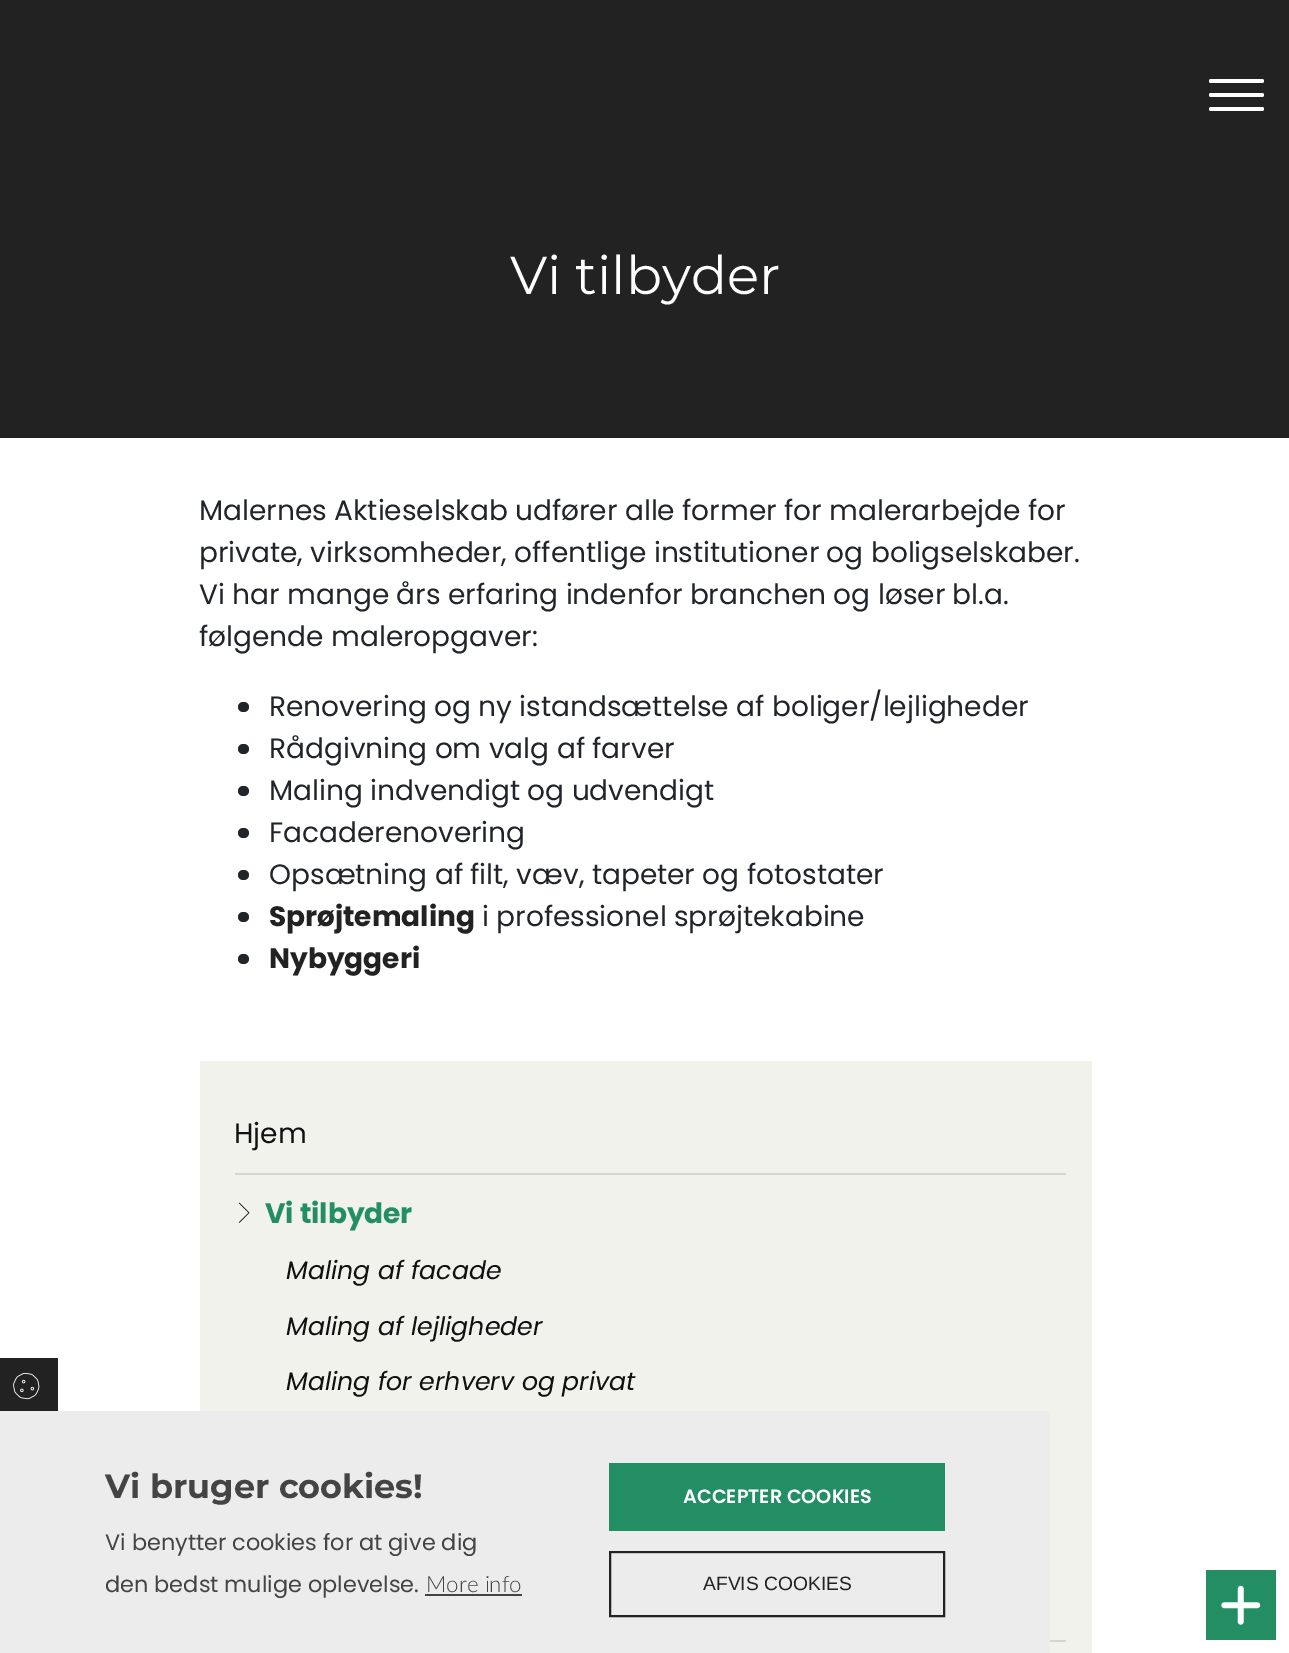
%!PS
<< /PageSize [1289 1653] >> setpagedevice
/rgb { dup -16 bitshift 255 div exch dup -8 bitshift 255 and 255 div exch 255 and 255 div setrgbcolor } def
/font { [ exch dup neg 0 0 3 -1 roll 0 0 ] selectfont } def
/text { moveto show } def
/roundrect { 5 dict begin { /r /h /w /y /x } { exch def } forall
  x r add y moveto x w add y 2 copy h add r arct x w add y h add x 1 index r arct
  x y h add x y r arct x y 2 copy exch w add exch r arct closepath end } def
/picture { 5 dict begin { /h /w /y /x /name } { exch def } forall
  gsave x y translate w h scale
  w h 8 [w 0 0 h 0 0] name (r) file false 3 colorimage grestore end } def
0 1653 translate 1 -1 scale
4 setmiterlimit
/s1 { /Montserrat-Regular 53.25 font 16#FFFFFF rgb } def
/s2 { /Poppins-Regular 28 font 16#212429 rgb } def
/s3 { /Poppins-Bold 28 font 16#222222 rgb } def
/s4 { /Poppins-Regular 28 font 16#111111 rgb } def
/s5 { /Poppins-Bold 28 font 16#238E64 rgb } def
/s6 { /Poppins-Italic 25.25 font 16#111111 rgb } def
/s7 { /Montserrat-Bold 33.5 font 16#444444 rgb } def
/s8 { /Poppins-Regular 22.4 font 16#444444 rgb } def
/s9 { /Lato-Light 22.4 font 16#444444 rgb } def
/s10 { /Poppins-SemiBold 19.25 font 16#FFFFFF rgb } def
/s11 { /LiberationSans-Regular 19.25 font 16#222222 rgb } def
16#FFFFFF rgb
0 0 1289 1653 rectfill
16#222222 rgb
0 0 1289 438 rectfill
16#FFFFFF rgb
1209 93 55 4 2 roundrect fill
1209 79 55 4 2 roundrect fill
1209 107 55 4 2 roundrect fill
s1
(Vi tilbyder) 510 294 text
s2
(Malernes Aktieselskab udfører alle former for malerarbejde for) 199 520 text
(private, virksomheder, offentlige institutioner og boligselskaber.) 199 562 text
(Vi har mange års erfaring indenfor branchen og løser bl.a.) 199 604 text
(følgende maleropgaver:) 199 646 text
238 702 11 10 5 roundrect fill
(Renovering og ny istandsættelse af boliger/lejligheder) 269 716 text
238 744 11 10 5 roundrect fill
(Rådgivning om valg af farver) 269 758 text
238 786 11 10 5 roundrect fill
(Maling indvendigt og udvendigt) 269 800 text
238 828 11 10 5 roundrect fill
(Facaderenovering) 269 842 text
238 870 11 10 5 roundrect fill
(Opsætning af filt, væv, tapeter og fotostater) 269 884 text
238 912 11 10 5 roundrect fill
s3
(Sprøjtemaling) 269 926 text
s2
(i professionel sprøjtekabine) 482 926 text
238 954 11 10 5 roundrect fill
s3
(Nybyggeri) 269 968 text
16#F1F2EB rgb
200 1061 892 592 rectfill
16#D4D5CF rgb
235 1173 831 2 rectfill
s4
(Hjem) 234 1143 text
16#D4D5CF rgb
1050 1640 16 2 rectfill
(pic1.raw) 238 1202 12 21 picture
s5
(Vi tilbyder) 265 1223 text
s6
(Maling af facade) 286 1279 text
(Maling af lejligheder) 286 1335 text
(Maling for erhverv og privat) 286 1390 text
16#238E64 rgb
1206 1570 70 70 rectfill
(pic2.raw) 1221 1585 40 40 picture
16#ECECEC rgb
0 1411 1050 242 rectfill
16#222222 rgb
0 1358 58 53 rectfill
(pic3.raw) 13 1372 27 28 picture
s7
(Vi bruger cookies!) 105 1498 text
s8
(Vi benytter cookies for at give dig) 105 1550 text
(den bedst mulige oplevelse.) 105 1592 text
s9
(More info) 426 1592 text
425 1594 97 2 rectfill
16#238E64 rgb
609 1463 336 68 rectfill
s10
(ACCEPTER COOKIES) 683 1503 text
611 1553 332 1 rectfill
16#222222 rgb
2 setlinewidth
610 1552 334 64 rectstroke
s11
(AFVIS COOKIES) 703 1590 text
showpage
